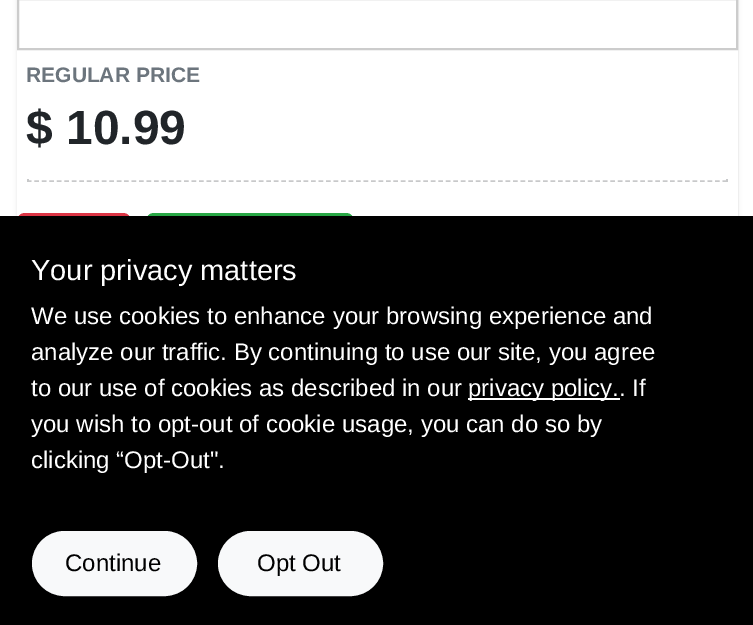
%!PS
<< /PageSize [753 625] /PageUsesTransparency true >> setpagedevice
/rgb { dup -16 bitshift 255 div exch dup -8 bitshift 255 and 255 div exch 255 and 255 div setrgbcolor } def
/font { [ exch dup neg 0 0 3 -1 roll 0 0 ] selectfont } def
/text { moveto show } def
/alpha { dup .setfillconstantalpha .setstrokeconstantalpha } def
/roundrect { 5 dict begin { /r /h /w /y /x } { exch def } forall
  x r add y moveto x w add y 2 copy h add r arct x w add y h add x 1 index r arct
  x y h add x y r arct x y 2 copy exch w add exch r arct closepath end } def
/shadow { 12 dict begin { /a /b /q /h /w /y /x } { exch def } forall gsave /was 0 def
  9 -2 -9 { dup b mul 4 div /e exch def 1 sub .425 mul 2.718 exch exp 1 add a .99 .min exch div /now exch def
    1 1 now sub 1 was sub div sub alpha /was now def
    w h .min e 2 mul add 0 gt { x e sub y e sub w e 2 mul add h e 2 mul add
      q e add b .6 mul add w h .min 2 div e add .min 0 .max roundrect fill } if } for grestore end } def
0 .pushpdf14devicefilter
0 625 translate 1 -1 scale
4 setmiterlimit
/s1 { /LiberationSans-Bold 21 font 16#6C757D rgb } def
/s2 { /LiberationSans-Bold 48 font 16#212529 rgb } def
/s3 { /LiberationSans-Regular 29 font 16#FFFFFF rgb } def
/s4 { /LiberationSans-Regular 24 font 16#FFFFFF rgb } def
/s5 { /LiberationSans-Regular 24 font 16#000000 rgb } def
16#FFFFFF rgb
0 0 753 625 rectfill
gsave
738 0 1 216 rectclip
16#000000 rgb
17 -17 721 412 12 1.5 0.06 shadow
grestore
gsave
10 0 moveto 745 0 lineto 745 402 lineto 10 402 lineto closepath 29 -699 moveto 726 -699 lineto 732.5 -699 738 -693.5 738 -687 curveto 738 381 lineto 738 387.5 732.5 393 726 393 curveto 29 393 lineto 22.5 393 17 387.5 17 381 curveto 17 -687 lineto 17 -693.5 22.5 -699 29 -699 curveto closepath eoclip newpath
16#000000 rgb
17 -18 721 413 12 2 0.1 shadow
grestore
16#CCCCCC rgb
2 setlinewidth
18 -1 719 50 rectstroke
s1
(REGULAR PRICE) 26 82 text
s2
($ 10.99) 26 144 text
16#C8C9CA rgb
726 179 2 3 rectfill
1.5 setlinewidth
[4.5 2.98] 0 setdash
27 181 moveto 727.5 181 lineto stroke
27 179 2 3 rectfill
16#DC3545 rgb
17 213 114 38 8 roundrect fill
16#28A745 rgb
146 213 208 38 8 roundrect fill
16#000000 rgb
0 216 753 409 rectfill
s3
(Your privacy matters) 31 280 text
s4
(We use cookies to enhance your browsing experience and) 31 324 text
(analyze our traffic. By continuing to use our site, you agree) 31 360 text
(to our use of cookies as described in our) 31 396 text
468 398 152 2 rectfill
(privacy policy.. If) 468 396 text
(you wish to opt-out of cookie usage, you can do so by) 31 432 text
(clicking “Opt-Out".) 31 468 text
16#F8F9FA rgb
33 532 163 63 31.5 roundrect gsave fill grestore
2 setlinewidth
[] 0 setdash
stroke
s5
(Continue) 65 571 text
16#F8F9FA rgb
219 532 163 63 31.5 roundrect gsave fill grestore
stroke
s5
(Opt Out) 257 571 text
.poppdf14devicefilter showpage
